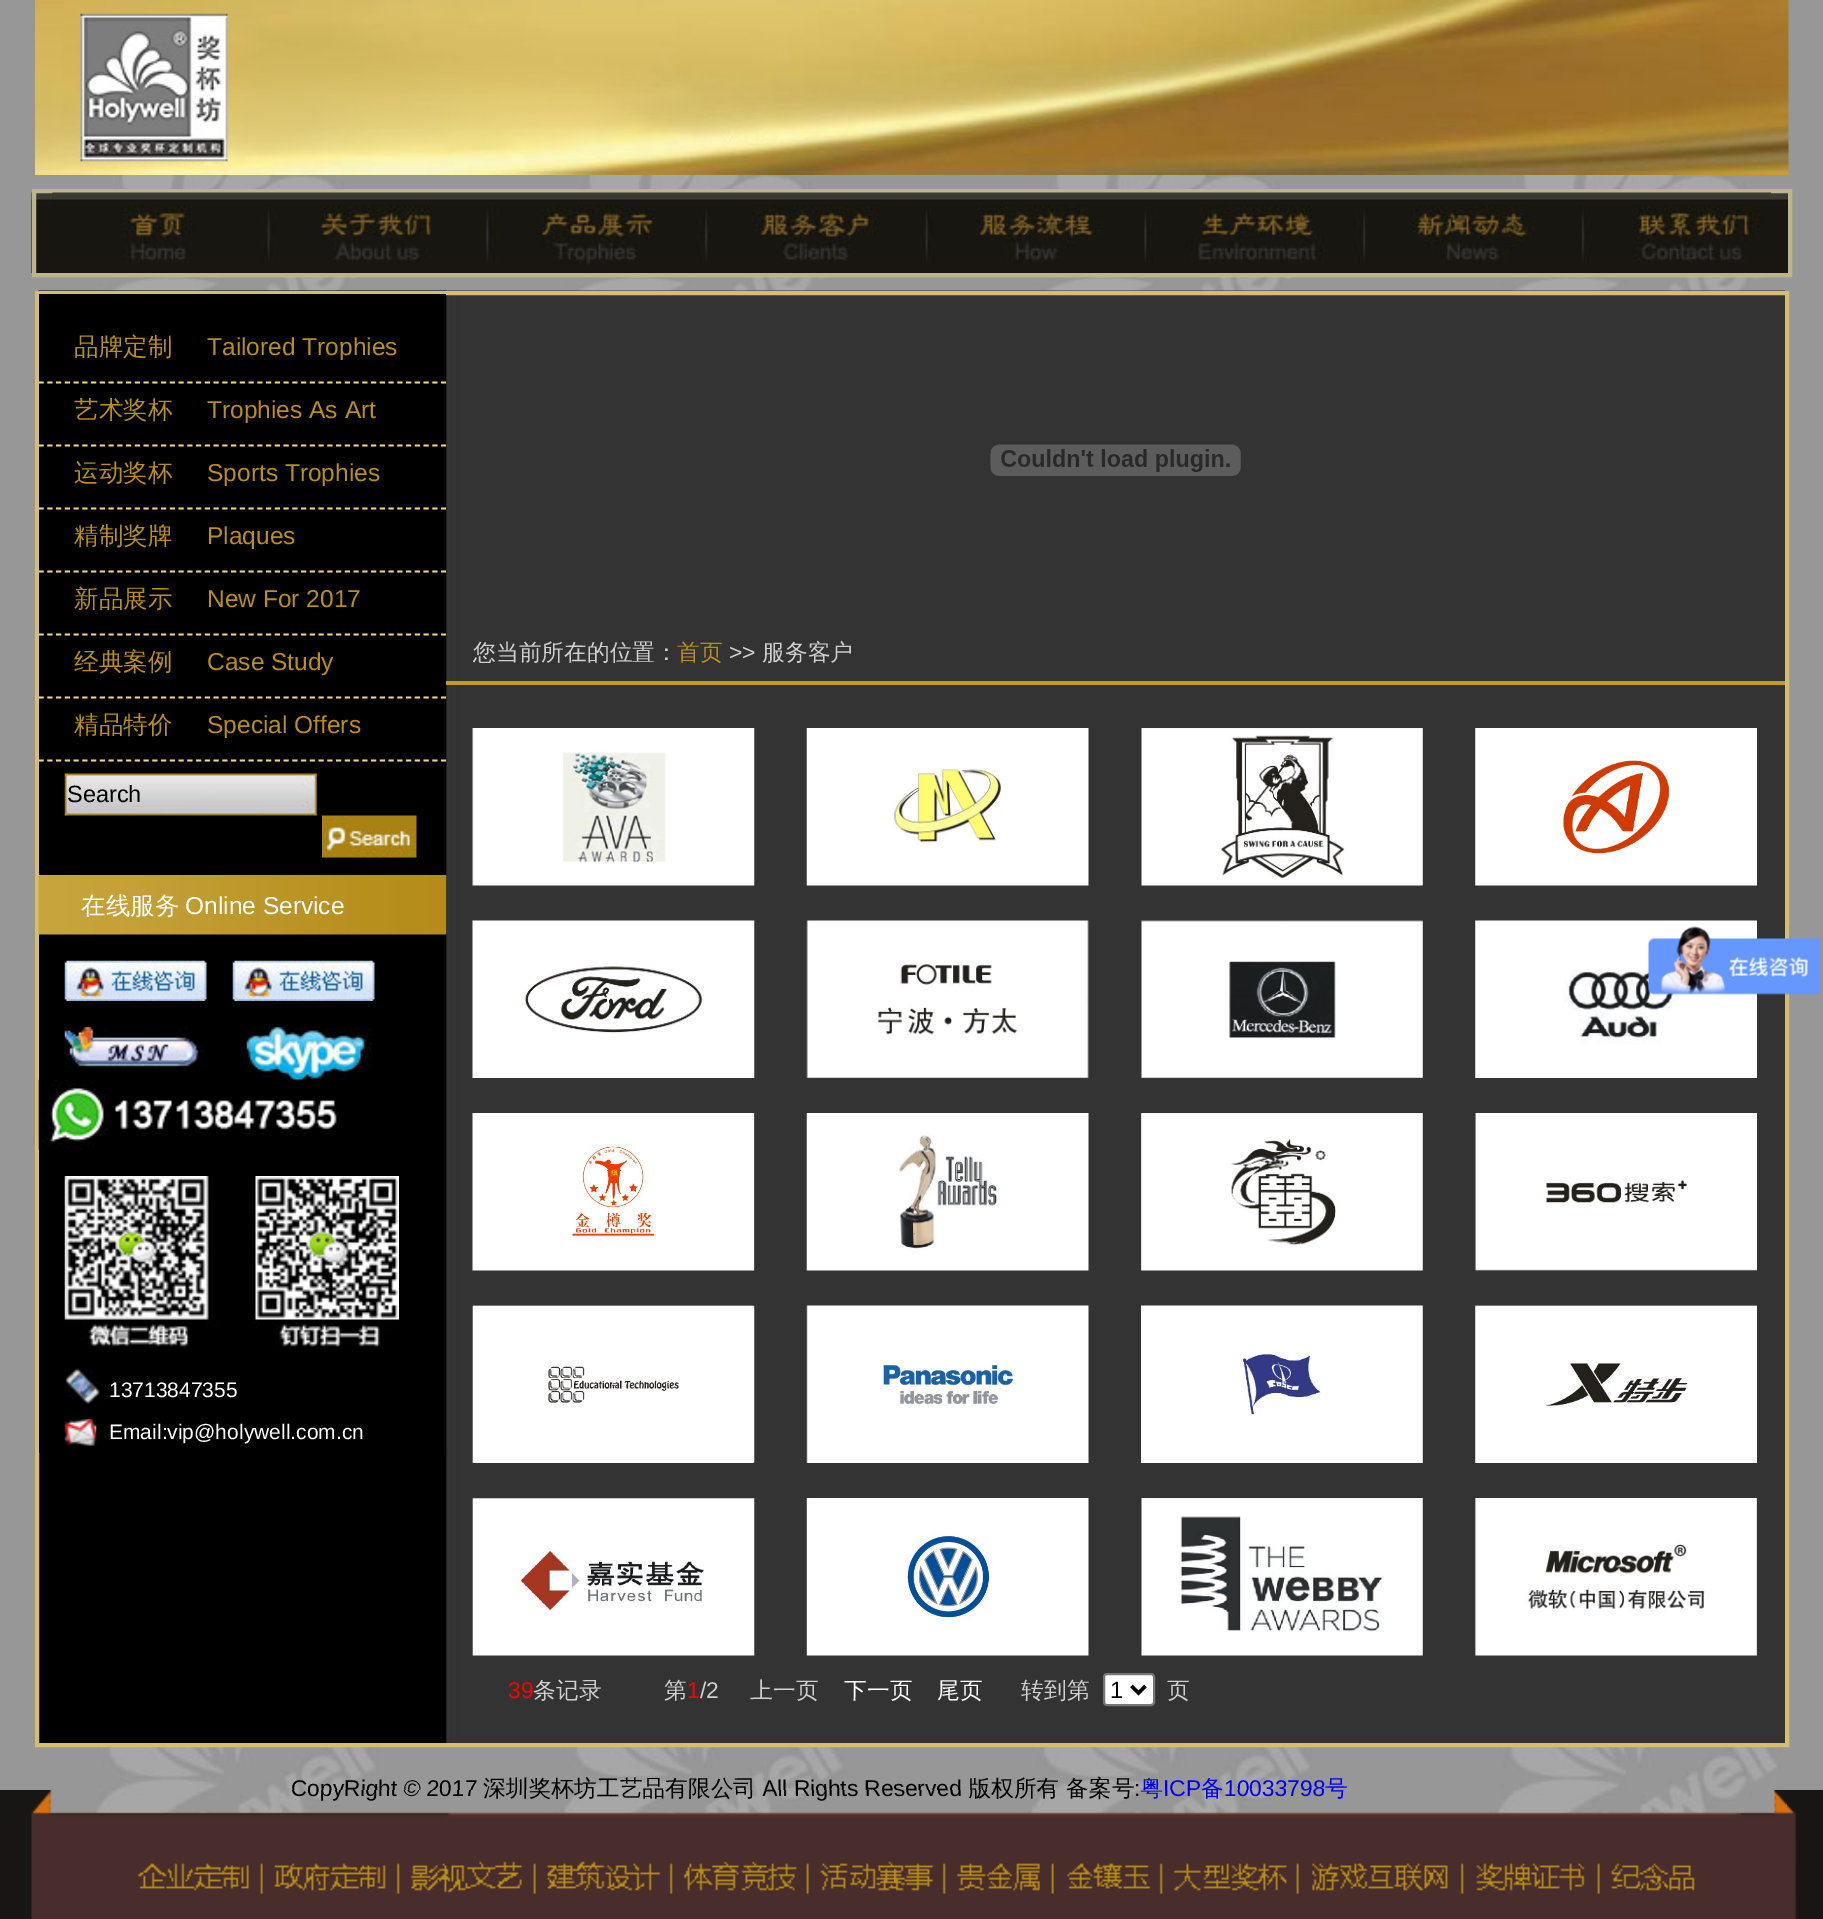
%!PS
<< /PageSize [1823 1919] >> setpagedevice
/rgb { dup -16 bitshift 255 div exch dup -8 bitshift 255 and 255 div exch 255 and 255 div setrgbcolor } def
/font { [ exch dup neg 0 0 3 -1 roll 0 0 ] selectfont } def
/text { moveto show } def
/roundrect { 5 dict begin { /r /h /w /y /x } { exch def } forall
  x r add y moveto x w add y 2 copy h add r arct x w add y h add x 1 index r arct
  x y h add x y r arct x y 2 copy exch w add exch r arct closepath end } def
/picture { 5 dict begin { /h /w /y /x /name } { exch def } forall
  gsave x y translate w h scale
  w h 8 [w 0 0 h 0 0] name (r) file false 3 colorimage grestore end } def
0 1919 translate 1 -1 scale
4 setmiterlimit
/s1 { /WenQuanYiZenHei-Medium 24.5 font 16#B98F16 rgb } def
/s2 { /LiberationSans-Regular 24.5 font 16#B98F16 rgb } def
/s3 { /LiberationSans-Regular 23.5 font 16#000000 rgb } def
/s4 { /WenQuanYiZenHei-Medium 24.5 font 16#FFFFFF rgb } def
/s5 { /LiberationSans-Regular 24.5 font 16#FFFFFF rgb } def
/s6 { /LiberationSans-Regular 21 font 16#FFFFFF rgb } def
/s7 { /WenQuanYiZenHei-Medium 22.75 font 16#D0D0D0 rgb } def
/s8 { /WenQuanYiZenHei-Medium 22.75 font 16#B98F16 rgb } def
/s9 { /LiberationSans-Regular 22.75 font 16#D0D0D0 rgb } def
/s10 { /LiberationSans-Regular 22.75 font 16#FF0000 rgb } def
/s11 { /WenQuanYiZenHei-Medium 22.75 font 16#FFFFFF rgb } def
/s12 { /LiberationSans-Regular 22.75 font 16#000000 rgb } def
/s13 { /WenQuanYiZenHei-Medium 22.75 font 16#000000 rgb } def
/s14 { /WenQuanYiZenHei-Medium 22.75 font 16#0000EE rgb } def
/s15 { /LiberationSans-Regular 22.75 font 16#0000EE rgb } def
16#FFFFFF rgb
0 0 1823 1919 rectfill
(pic1.raw) 0 0 1823 1814 picture
(pic2.raw) 35 0 1754 175 picture
(pic3.raw) 31 192 1757 81 picture
16#BEB389 rgb
4 setlinewidth
34 191 1756 84 rectstroke
(pic4.raw) 52 192 1719 73 picture
(pic5.raw) 38 290 1747 1453 picture
16#D5BF6C rgb
37 293 1750 1452 rectstroke
16#000000 rgb
39 294 407 1159 rectfill
gsave
39 294 1746 1449 rectclip
16#F1D480 rgb
1.8 setlinewidth
[5.25 3.5] 0 setdash
38.5 382.5 moveto 446 382.5 lineto stroke
grestore
s1
(品牌定制) 74 355 text
s2
(Tailored Trophies) 207 355 text
gsave
39 294 1746 1449 rectclip
16#F1D480 rgb
1.8 setlinewidth
[5.25 3.5] 0 setdash
38.5 445.5 moveto 446 445.5 lineto stroke
grestore
s1
(艺术奖杯) 74 418 text
s2
(Trophies As Art) 207 418 text
gsave
39 294 1746 1449 rectclip
16#F1D480 rgb
1.8 setlinewidth
[5.25 3.5] 0 setdash
38.5 508.5 moveto 446 508.5 lineto stroke
grestore
s1
(运动奖杯) 74 481 text
s2
(Sports Trophies) 207 481 text
gsave
39 294 1746 1449 rectclip
16#F1D480 rgb
1.8 setlinewidth
[5.25 3.5] 0 setdash
38.5 571.5 moveto 446 571.5 lineto stroke
grestore
s1
(精制奖牌) 74 544 text
s2
(Plaques) 207 544 text
gsave
39 294 1746 1449 rectclip
16#F1D480 rgb
1.8 setlinewidth
[5.25 3.5] 0 setdash
38.5 634.5 moveto 446 634.5 lineto stroke
grestore
s1
(新品展示) 74 607 text
s2
(New For 2017) 207 607 text
gsave
39 294 1746 1449 rectclip
16#F1D480 rgb
1.8 setlinewidth
[5.25 3.5] 0 setdash
38.5 697.5 moveto 446 697.5 lineto stroke
grestore
s1
(经典案例) 74 670 text
s2
(Case Study) 207 670 text
gsave
39 294 1746 1449 rectclip
16#F1D480 rgb
1.8 setlinewidth
[5.25 3.5] 0 setdash
38.5 760.5 moveto 446 760.5 lineto stroke
grestore
s1
(精品特价) 74 733 text
s2
(Special Offers) 207 733 text
(pic6.raw) 64 773 253 43 picture
s3
(Search) 67 802 text
(pic7.raw) 322 815 95 43 picture
(pic8.raw) 38 875 409 60 picture
s4
(在线服务) 81 914 text
s5
(Online Service) 185 914 text
(pic9.raw) 64 960 143 41 picture
(pic9.raw) 232 960 143 41 picture
(pic10.raw) 64 1027 141 42 picture
(pic11.raw) 246 1027 127 53 picture
(pic12.raw) 38 1079 299 71 picture
(pic13.raw) 64 1176 335 172 picture
(pic14.raw) 65 1368 35 36 picture
s6
(13713847355) 109 1397 text
(pic15.raw) 64 1419 33 27 picture
(Email:vip@holywell.com.cn) 109 1439 text
(pic16.raw) 990 444 251 32 picture
16#C09A2D rgb
446 681 1339 4 rectfill
s7
(您当前所在的位置：) 473 660 text
s8
(首页) 677 660 text
s9
(>>) 729 660 text
s7
(服务客户) 762 660 text
(pic17.raw) 472 728 283 158 picture
(pic18.raw) 806 728 283 158 picture
(pic19.raw) 1141 728 282 158 picture
(pic20.raw) 1475 728 282 158 picture
(pic21.raw) 472 920 283 158 picture
(pic22.raw) 806 920 283 158 picture
(pic23.raw) 1141 920 282 158 picture
(pic24.raw) 1475 920 282 158 picture
(pic25.raw) 472 1113 283 158 picture
(pic26.raw) 806 1113 283 158 picture
(pic27.raw) 1141 1113 282 158 picture
(pic28.raw) 1475 1113 282 158 picture
(pic29.raw) 472 1305 283 158 picture
(pic30.raw) 806 1305 283 158 picture
(pic31.raw) 1141 1305 282 158 picture
(pic32.raw) 1475 1305 282 158 picture
(pic33.raw) 472 1498 283 158 picture
(pic34.raw) 806 1498 283 158 picture
(pic35.raw) 1141 1498 282 158 picture
(pic36.raw) 1475 1498 282 158 picture
s10
(39) 508 1698 text
s7
(条记录) 533 1698 text
(第) 664 1698 text
s10
(1) 687 1698 text
s9
(/2) 700 1698 text
s7
(上一页) 750 1698 text
s11
(下一页) 844 1698 text
(尾页) 937 1698 text
s7
(转到第) 1021 1698 text
16#FFFFFF rgb
1104 1674 50 31 3 roundrect gsave fill grestore
16#767676 rgb
2 setlinewidth
stroke
16#000000 rgb
3.5 setlinewidth
1131.5 1686 moveto 1138.5 1693 lineto 1145.5 1686 lineto stroke
s3
(1) 1110 1698 text
s7
(页) 1167 1698 text
(pic37.raw) 1648 926 173 69 picture
s12
(CopyRight © 2017) 291 1796 text
s13
(深圳奖杯坊工艺品有限公司) 483 1796 text
s12
(All Rights Reserved) 762 1796 text
s13
(版权所有) 968 1796 text
(备案号) 1066 1796 text
s12
(:) 1134 1796 text
s14
(粤) 1140 1796 text
s15
(ICP) 1163 1796 text
s14
(备) 1201 1796 text
s15
(10033798) 1224 1796 text
s14
(号) 1325 1796 text
(pic38.raw) 0 1790 1823 129 picture
showpage
